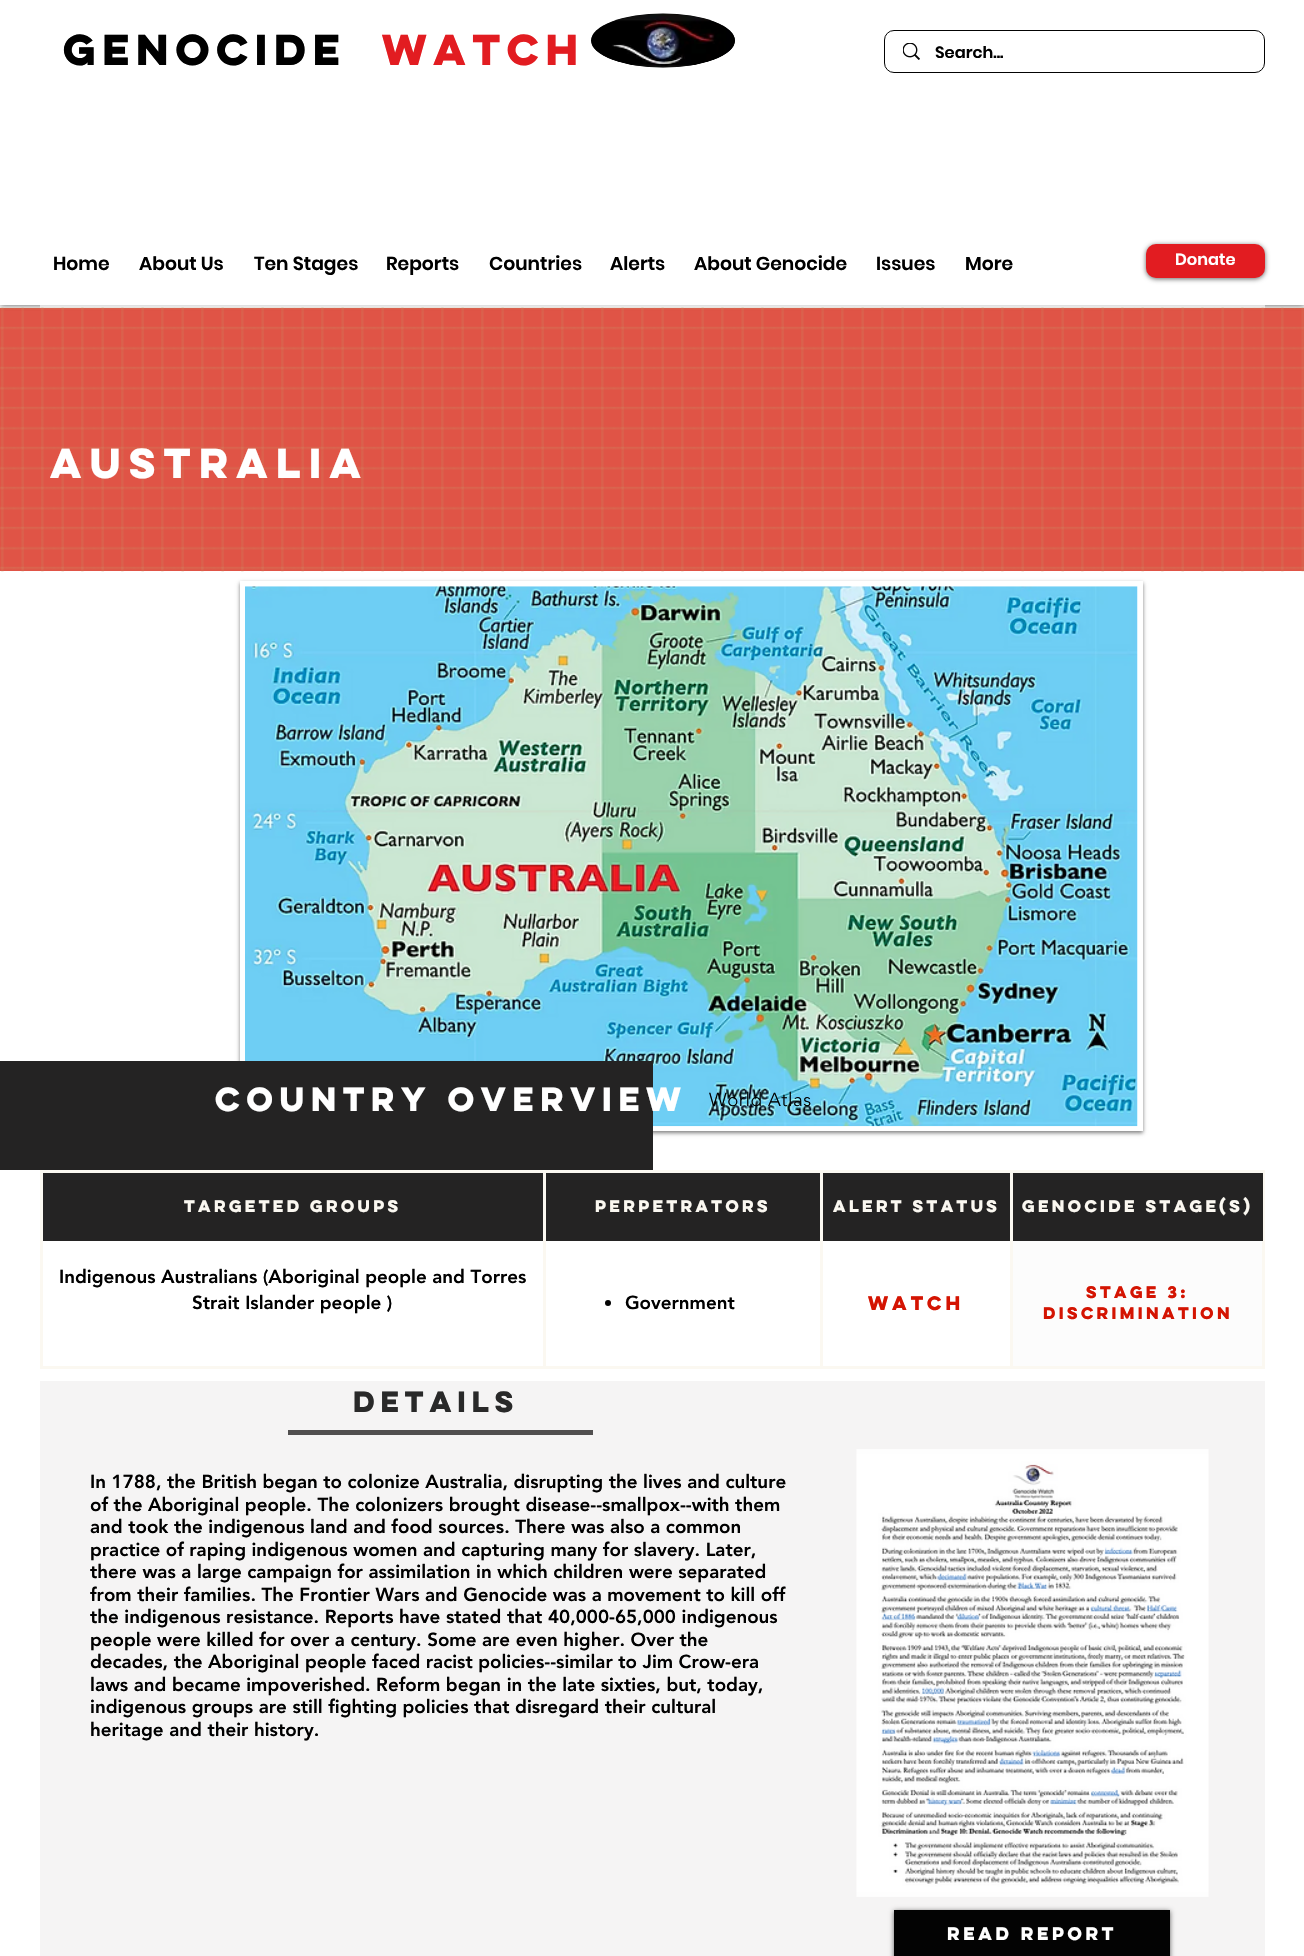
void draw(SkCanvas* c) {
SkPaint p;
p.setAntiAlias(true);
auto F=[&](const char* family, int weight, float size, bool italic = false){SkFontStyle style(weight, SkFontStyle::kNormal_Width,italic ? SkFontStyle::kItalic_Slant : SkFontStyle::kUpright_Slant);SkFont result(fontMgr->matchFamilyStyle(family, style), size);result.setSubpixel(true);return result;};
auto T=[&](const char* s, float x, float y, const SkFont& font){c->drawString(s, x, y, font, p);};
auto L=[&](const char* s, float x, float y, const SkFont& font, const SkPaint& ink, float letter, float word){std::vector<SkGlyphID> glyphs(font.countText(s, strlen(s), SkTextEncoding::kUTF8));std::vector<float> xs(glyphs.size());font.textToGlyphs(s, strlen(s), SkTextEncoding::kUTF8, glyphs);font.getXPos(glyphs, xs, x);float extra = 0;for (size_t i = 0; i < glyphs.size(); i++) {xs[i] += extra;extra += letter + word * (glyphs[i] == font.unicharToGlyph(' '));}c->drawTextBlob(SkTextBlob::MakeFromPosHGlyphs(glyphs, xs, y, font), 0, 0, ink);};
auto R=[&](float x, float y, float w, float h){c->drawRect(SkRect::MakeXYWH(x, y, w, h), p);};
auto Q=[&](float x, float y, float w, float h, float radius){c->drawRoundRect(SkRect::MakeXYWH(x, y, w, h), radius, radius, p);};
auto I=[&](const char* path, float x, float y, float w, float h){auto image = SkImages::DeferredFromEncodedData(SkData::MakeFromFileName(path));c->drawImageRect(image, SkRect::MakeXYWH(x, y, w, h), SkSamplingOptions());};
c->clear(0xffffffff);
c->save();
c->clipRect(SkRect::MakeXYWH(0,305,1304,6));
p.setColor(0xb3000000);
p.setMaskFilter(SkMaskFilter::MakeBlur(kNormal_SkBlurStyle, 3));
c->drawRect(SkRect::MakeXYWH(0,0,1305,305),p);
p.setMaskFilter(nullptr);
c->restore();
auto f1 = F("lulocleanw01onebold",700,38.75);
p.setColor(0xff000000);
L("GENOCIDE",63,65,f1,p,-2,0);
p.setColor(0xffe21c21);
L("WATCH",382,65,f1,p,-2,0);
p.setColor(0xff030303);
c->drawOval(SkRect::MakeXYWH(591,13.5,144,54),p);
I("1.png",591,14,144,54);
p.setStroke(true);
p.setStrokeWidth(1);
c->drawRoundRect(SkRect::MakeXYWH(884.5,30.5,380,42),9.5,9.5,p);
I("2.png",903,43,17,17);
auto f2 = F("Poppins",600,16.25);
p.setStroke(false);
p.setColor(0xff000000);
T("Search...",935,58,f2);
auto f3 = F("Poppins",600,18.75);
T("Home",53,270,f3);
T("About Us",139,270,f3);
T("Ten Stages",254,270,f3);
T("Reports",386,270,f3);
T("Countries",489,270,f3);
T("Alerts",610,270,f3);
T("About Genocide",694,270,f3);
T("Issues",876,270,f3);
T("More",965,270,f3);
p.setColor(0x99000000);
p.setMaskFilter(SkMaskFilter::MakeBlur(kNormal_SkBlurStyle, 2.5));
c->drawRoundRect(SkRect::MakeXYWH(1146,245,119,34),10,10,p);
p.setMaskFilter(nullptr);
p.setColor(0xffe21c21);
Q(1146,244,119,34,10);
p.setColor(0xffffffff);
T("Donate",1175,265,f2);
p.setColor(0x99ffffff);
R(40,305,1225,6);
p.setColor(0xbad41402);
R(0,308,1304,263);
I("3.png",0,307,1304,265);
auto f4 = F("lulocleanw01onebold",700,37.5);
p.setColor(0xffffffff);
T("Australia",50,478,f4);
p.setColor(0x80000000);
p.setMaskFilter(SkMaskFilter::MakeBlur(kNormal_SkBlurStyle, 2));
c->drawRect(SkRect::MakeXYWH(240,583,903,550),p);
p.setMaskFilter(nullptr);
p.setColor(0xffffffff);
R(240,581,903,550);
I("4.png",245,586,893,541);
p.setColor(0xff242323);
R(0,1061,653,109);
auto f5 = F("lulocleanw01onebold",700,30);
p.setColor(0xffffffff);
T("Country Overview",215,1111,f5);
auto f6 = F("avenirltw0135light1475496",300,18.75);
p.setColor(0xff000000);
L("World Atlas",709,1106,f6,p,.5,0);
p.setStroke(true);
p.setStrokeWidth(3);
p.setColor(0xfffbf8f1);
c->drawRect(SkRect::MakeXYWH(41.5,1171.5,1222,196),p);
p.setStroke(false);
p.setColor(0xff242323);
R(43,1173,1220,68);
p.setColor(0xfffbf8f1);
R(543,1173,3,193);
auto f7 = F("lulocleanw01onebold",700,15);
T("Targeted Groups",184,1212,f7);
R(820,1173,3,193);
T("Perpetrators",595,1212,f7);
R(1010,1173,3,193);
T("Alert Status",833,1212,f7);
T("Genocide Stage(s)",1022,1212,f7);
auto f8 = F("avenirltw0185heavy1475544",900,18.75);
p.setColor(0xff000000);
T("Indigenous Australians (Aboriginal people and Torres",59,1283,f8);
T("Strait Islander people )",192,1309,f8);
p.setColor(0xff030303);
c->drawCircle(608,1303,3,p);
p.setColor(0xff000000);
T("Government",625,1309,f8);
auto f9 = F("lulocleanw01onebold",700,17.5);
p.setColor(0xffd41402);
T("Watch",868,1310,f9);
p.setColor(0x1ae2dfdf);
R(1013,1241,249,125);
p.setColor(0xffd41402);
T("Stage 3:",1086,1298,f7);
T("Discrimination",1043,1319,f7);
p.setColor(0xfff5f4f4);
R(40,1381,1225,575);
auto f10 = F("lulocleanw01onebold",700,26.25);
p.setColor(0xff292929);
T("Details",353,1412,f10);
p.setColor(0xff514f4f);
R(288,1430,305,5);
p.setColor(0xff000000);
T("In 1788, the British began to colonize Australia, disrupting the lives and culture",90,1488,f8);
T("of the Aboriginal people. The colonizers brought disease--smallpox--with them",90,1511,f8);
T("and took the indigenous land and food sources. There was also a common",90,1533,f8);
T("practice of raping indigenous women and capturing many for slavery. Later,",90,1556,f8);
T("there was a large campaign for assimilation in which children were separated",90,1578,f8);
T("from their families. The Frontier Wars and Genocide was a movement to kill off",90,1601,f8);
T("the indigenous resistance. Reports have stated that 40,000-65,000 indigenous",90,1623,f8);
T("people were killed for over a century. Some are even higher. Over the",90,1646,f8);
T("decades, the Aboriginal people faced racist policies--similar to Jim Crow-era",90,1668,f8);
T("laws and became impoverished. Reform began in the late sixties, but, today,",90,1691,f8);
T("indigenous groups are still fighting policies that disregard their cultural",90,1713,f8);
T("heritage and their history.",90,1736,f8);
I("5.png",856,1449,353,448);
p.setColor(0x99000000);
p.setMaskFilter(SkMaskFilter::MakeBlur(kNormal_SkBlurStyle, 2.5));
c->drawRect(SkRect::MakeXYWH(894,1911,276,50),p);
p.setMaskFilter(nullptr);
p.setColor(0xff030303);
R(894,1910,276,46);
auto f11 = F("lulocleanw01onebold",700,16.25);
p.setColor(0xffffffff);
T("Read Report",947,1940,f11);
}
